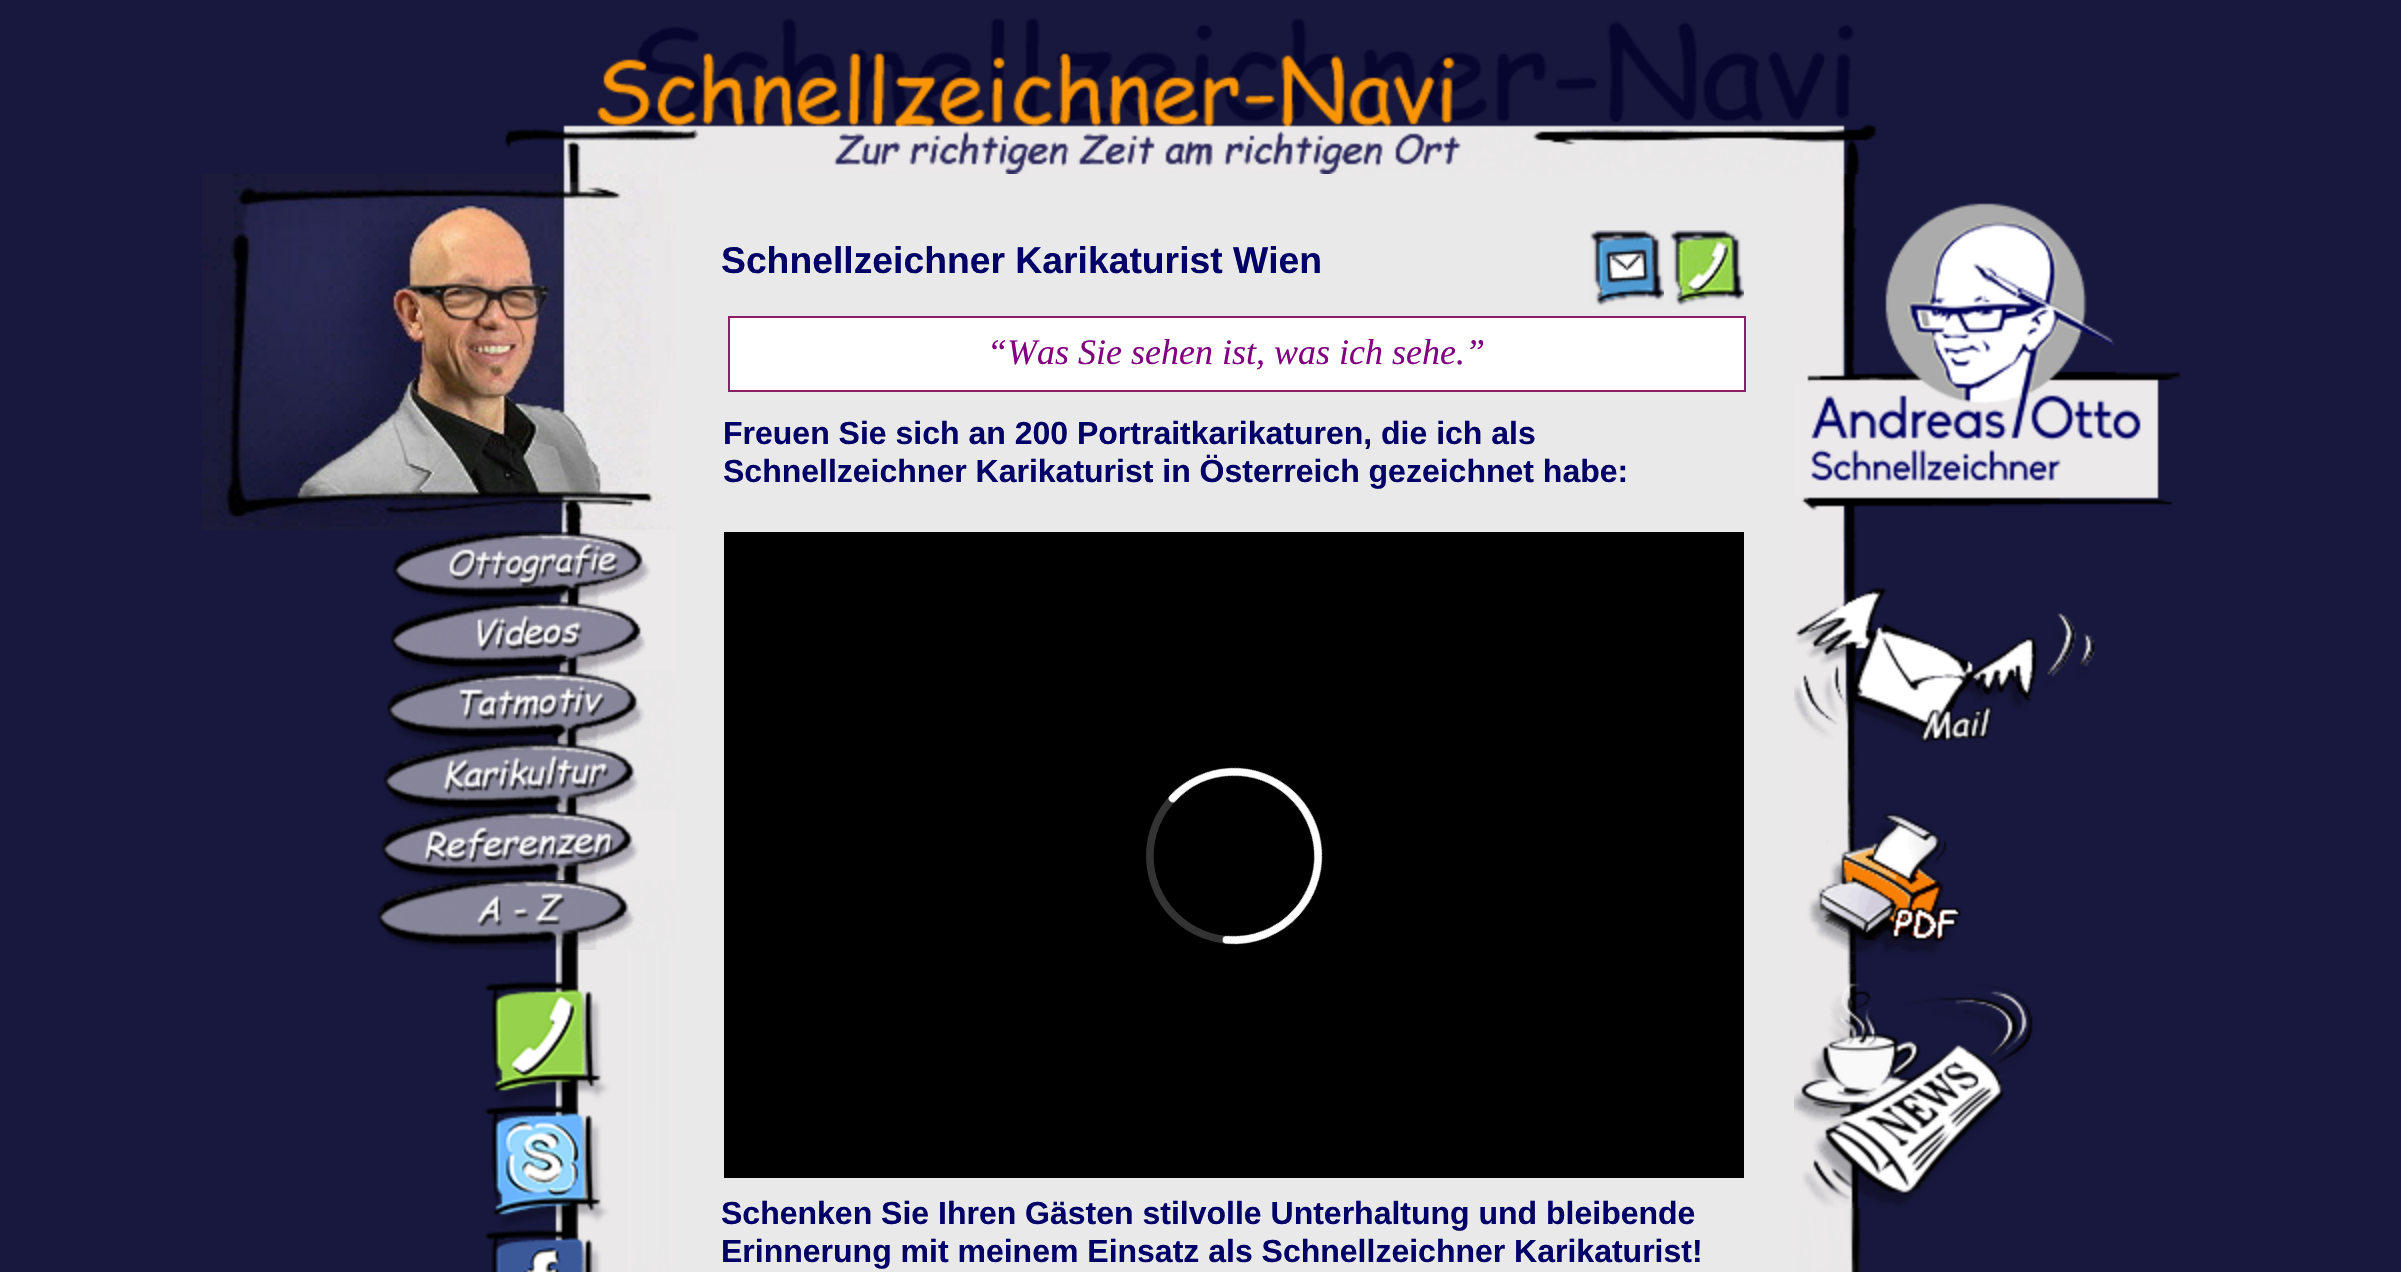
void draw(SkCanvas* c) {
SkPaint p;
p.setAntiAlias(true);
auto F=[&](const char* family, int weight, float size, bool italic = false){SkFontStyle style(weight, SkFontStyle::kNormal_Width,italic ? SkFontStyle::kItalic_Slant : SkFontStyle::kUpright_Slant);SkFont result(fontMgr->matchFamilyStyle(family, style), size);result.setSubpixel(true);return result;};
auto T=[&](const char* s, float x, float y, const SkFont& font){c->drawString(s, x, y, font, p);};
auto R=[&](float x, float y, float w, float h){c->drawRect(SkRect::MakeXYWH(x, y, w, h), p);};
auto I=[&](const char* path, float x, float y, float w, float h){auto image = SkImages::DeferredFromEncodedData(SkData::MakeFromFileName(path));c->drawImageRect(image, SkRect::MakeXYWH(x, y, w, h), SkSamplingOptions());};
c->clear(0xff18183e);
I("1.png",505,18,1372,156);
I("2.png",202,174,474,356);
p.setColor(0xffeae9e9);
R(676,174,1118,1098);
auto f1 = F("Liberation Sans",700,37.3);
p.setColor(0xff000066);
T("Schnellzeichner Karikaturist Wien",721,273,f1);
I("3.png",1590,230,74,76);
I("4.png",1670,230,74,76);
p.setColor(0xffffffff);
c->drawRect(SkRect::MakeXYWH(729,317,1016,74),p);
p.setStroke(true);
p.setStrokeWidth(2);
p.setColor(0xff8a1f66);
c->drawRect(SkRect::MakeXYWH(729,317,1016,74),p);
auto f2 = F("Liberation Serif",400,36,true);
p.setStroke(false);
p.setColor(0xff800080);
T("“Was Sie sehen ist, was ich sehe.”",987,364,f2);
auto f3 = F("Liberation Sans",700,32);
p.setColor(0xff000066);
T("Freuen Sie sich an 200 Portraitkarikaturen, die ich als",723,444,f3);
T("Schnellzeichner Karikaturist in Österreich gezeichnet habe:",723,482,f3);
I("5.png",724,532,1020,646);
T("Schenken Sie Ihren Gästen stilvolle Unterhaltung und bleibende",721,1224,f3);
T("Erinnerung mit meinem Einsatz als Schnellzeichner Karikaturist!",721,1262,f3);
I("6.png",1794,174,387,1034);
I("7.png",392,530,284,70);
I("8.png",390,600,286,70);
I("9.png",387,670,289,70);
I("10.png",383,740,293,70);
I("11.png",381,810,295,70);
I("12.png",377,880,299,70);
I("13.png",485,950,191,322);
I("14.png",1794,1208,67,64);
}
